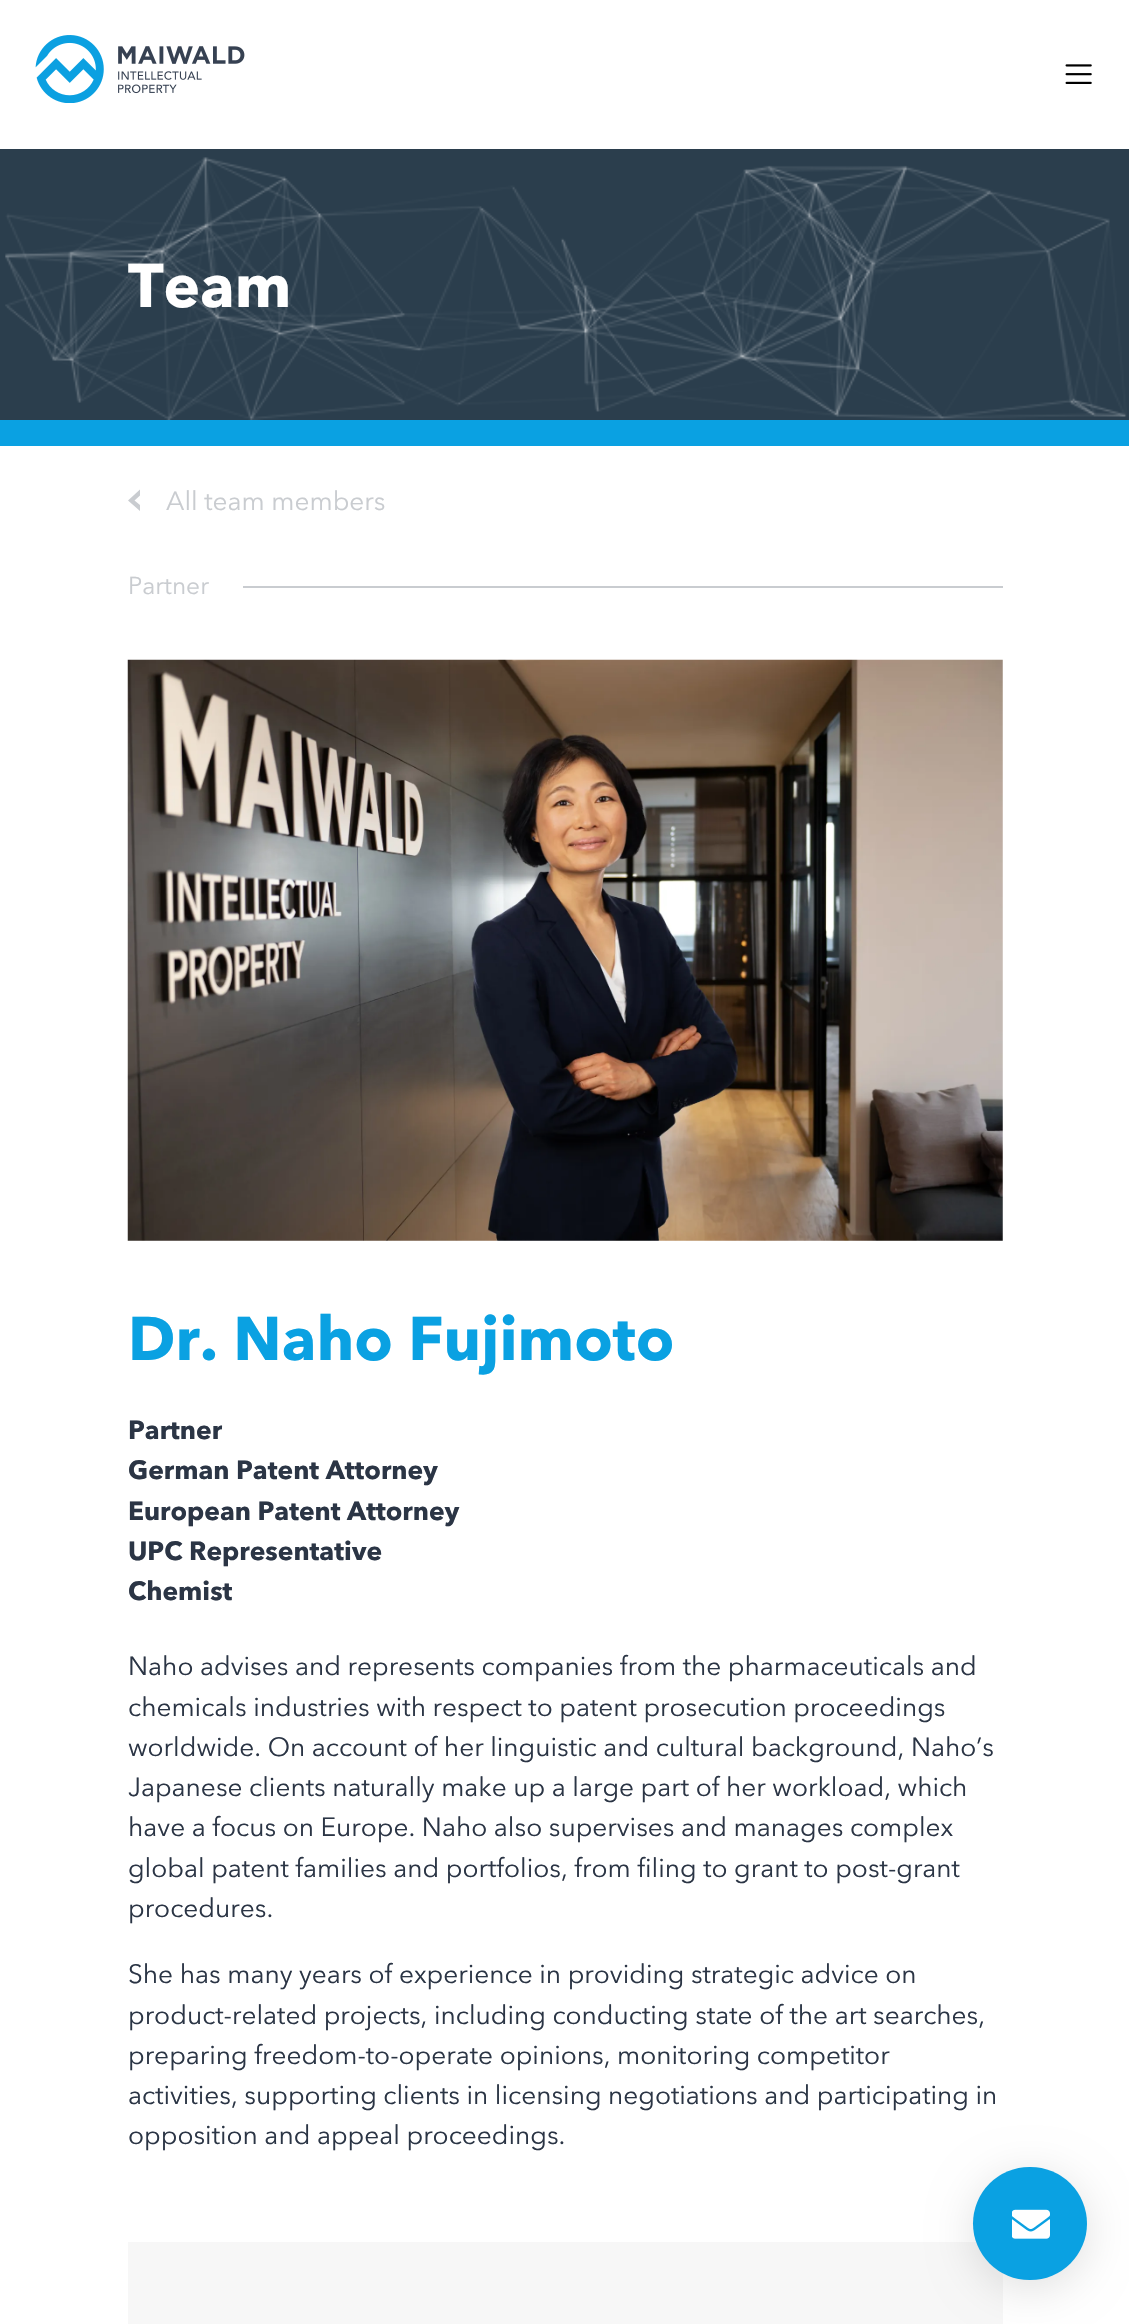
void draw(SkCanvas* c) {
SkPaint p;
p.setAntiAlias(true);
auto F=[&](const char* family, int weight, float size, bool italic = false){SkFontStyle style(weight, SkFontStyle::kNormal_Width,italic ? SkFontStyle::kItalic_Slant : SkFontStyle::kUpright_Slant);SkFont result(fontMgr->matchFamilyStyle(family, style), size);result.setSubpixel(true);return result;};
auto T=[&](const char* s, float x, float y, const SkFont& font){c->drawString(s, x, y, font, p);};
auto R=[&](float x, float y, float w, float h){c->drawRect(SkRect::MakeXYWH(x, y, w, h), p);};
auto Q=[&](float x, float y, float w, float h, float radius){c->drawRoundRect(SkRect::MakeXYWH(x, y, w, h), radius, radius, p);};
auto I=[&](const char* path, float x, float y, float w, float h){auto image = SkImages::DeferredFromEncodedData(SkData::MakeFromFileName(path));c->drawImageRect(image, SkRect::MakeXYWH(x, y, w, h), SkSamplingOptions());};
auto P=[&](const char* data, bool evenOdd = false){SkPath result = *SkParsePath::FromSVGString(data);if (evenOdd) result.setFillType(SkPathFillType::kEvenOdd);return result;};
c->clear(0xffffffff);
I("1.png",35,35,210,68);
I("2.png",1065,64,27,20);
p.setColor(0xff2b3e4d);
R(0,149,1129,271);
p.setColor(0xff0aa1e2);
R(0,420,1129,26);
auto f1 = F("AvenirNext",700,61.25);
p.setColor(0xffffffff);
T("Team",128,307,f1);
I("3.png",5,157,1122,263);
p.setColor(0xffc9ccd0);
c->drawPath(P("M140 511v-6l-5.5-4.5l5.5-5v-6l-12 11z"),p);
auto f2 = F("AvenirNext",400,26.25);
T("All team members",166,510,f2);
auto f3 = F("AvenirNext",400,24.5);
T("Partner",128,594,f3);
R(243,586,760,2);
I("4.png",127,659,876,582);
p.setColor(0xff0aa1e2);
T("Dr. Naho Fujimoto",128,1360,f1);
auto f4 = F("AvenirNext",700,26.25);
p.setColor(0xff2b3545);
T("Partner",128,1439,f4);
T("German Patent Attorney",128,1479,f4);
T("European Patent Attorney",128,1520,f4);
T("UPC Representative",128,1560,f4);
T("Chemist",128,1600,f4);
T("Naho advises and represents companies from the pharmaceuticals and",128,1675,f2);
T("chemicals industries with respect to patent prosecution proceedings",128,1716,f2);
T("worldwide. On account of her linguistic and cultural background, Naho’s",128,1756,f2);
T("Japanese clients naturally make up a large part of her workload, which",128,1796,f2);
T("have a focus on Europe. Naho also supervises and manages complex",128,1836,f2);
T("global patent families and portfolios, from filing to grant to post-grant",128,1877,f2);
T("procedures.",128,1917,f2);
T("She has many years of experience in providing strategic advice on",128,1983,f2);
T("product-related projects, including conducting state of the art searches,",128,2024,f2);
T("preparing freedom-to-operate opinions, monitoring competitor",128,2064,f2);
T("activities, supporting clients in licensing negotiations and participating in",128,2104,f2);
T("opposition and appeal proceedings.",128,2144,f2);
p.setColor(0xfff7f7f7);
R(128,2242,875,82);
p.setColor(0x1f000000);
p.setMaskFilter(SkMaskFilter::MakeBlur(kNormal_SkBlurStyle, 22));
c->drawRoundRect(SkRect::MakeXYWH(973,2175,114,114),57,57,p);
p.setMaskFilter(nullptr);
p.setColor(0xff0aa1e2);
Q(973,2167,114,113,56.5);
I("5.png",1012,2209,38,30);
}
